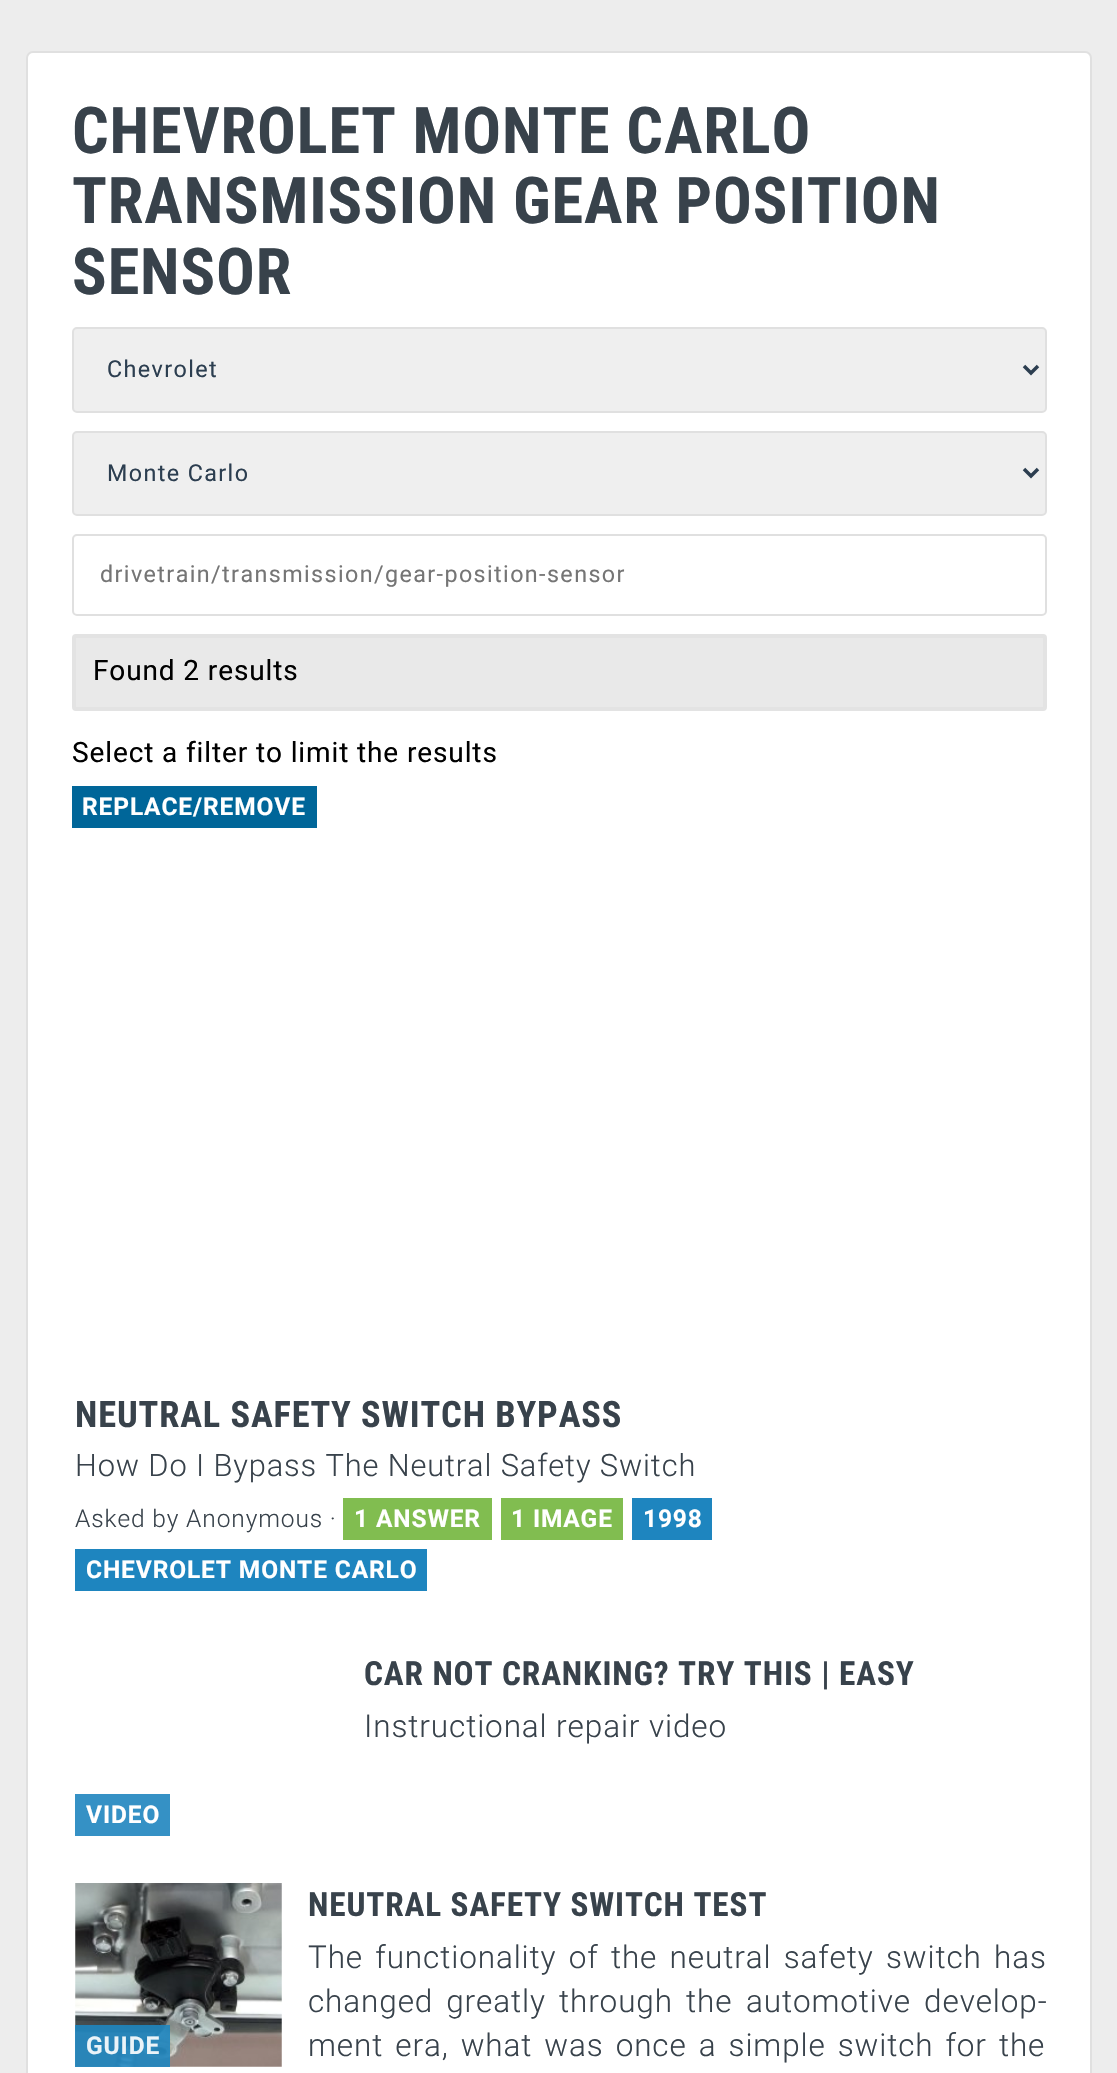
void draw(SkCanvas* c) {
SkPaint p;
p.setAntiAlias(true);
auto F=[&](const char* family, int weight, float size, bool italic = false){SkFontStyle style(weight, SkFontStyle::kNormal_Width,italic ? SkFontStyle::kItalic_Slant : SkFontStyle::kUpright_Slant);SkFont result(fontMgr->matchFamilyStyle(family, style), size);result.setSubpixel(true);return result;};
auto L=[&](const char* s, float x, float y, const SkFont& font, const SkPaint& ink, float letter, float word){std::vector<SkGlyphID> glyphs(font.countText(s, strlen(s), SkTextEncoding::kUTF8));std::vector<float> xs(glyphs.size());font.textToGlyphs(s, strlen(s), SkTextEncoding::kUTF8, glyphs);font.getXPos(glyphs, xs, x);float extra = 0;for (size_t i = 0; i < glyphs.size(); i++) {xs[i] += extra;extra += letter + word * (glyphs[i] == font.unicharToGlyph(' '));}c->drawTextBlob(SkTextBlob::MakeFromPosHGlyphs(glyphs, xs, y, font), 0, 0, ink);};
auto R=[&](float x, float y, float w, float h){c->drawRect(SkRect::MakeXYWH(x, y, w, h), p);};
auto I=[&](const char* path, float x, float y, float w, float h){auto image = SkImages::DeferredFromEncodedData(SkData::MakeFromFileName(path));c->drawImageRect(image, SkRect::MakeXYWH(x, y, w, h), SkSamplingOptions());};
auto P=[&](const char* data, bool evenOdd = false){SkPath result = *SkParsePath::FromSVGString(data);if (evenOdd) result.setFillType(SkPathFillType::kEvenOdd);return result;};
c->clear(0xffededed);
p.setColor(0xffffffff);
c->drawRoundRect(SkRect::MakeXYWH(27,52,1064,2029),6,6,p);
p.setStroke(true);
p.setStrokeWidth(2);
p.setColor(0xffe0e0e0);
c->drawRoundRect(SkRect::MakeXYWH(27,52,1064,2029),6,6,p);
auto f1 = F("Roboto Condensed",700,64.4);
p.setStroke(false);
p.setColor(0xff38424b);
L("CHEVROLET MONTE CARLO",72,153,f1,p,.88,0);
L("TRANSMISSION GEAR POSITION",72,223,f1,p,.88,0);
L("SENSOR",72,294,f1,p,.88,0);
p.setColor(0xffefefef);
c->drawRoundRect(SkRect::MakeXYWH(73,328,973,84),4,4,p);
p.setStroke(true);
p.setColor(0xffe0e0e0);
c->drawRoundRect(SkRect::MakeXYWH(73,328,973,84),4,4,p);
p.setStrokeWidth(3.5);
p.setColor(0xff2c3e50);
c->drawPath(P("M1024 366l7 7l7-7"),p);
auto f2 = F("Roboto",400,23.3);
p.setStroke(false);
L("Chevrolet",107,377,f2,p,1.4,0);
p.setColor(0xffefefef);
c->drawRoundRect(SkRect::MakeXYWH(73,432,973,83),4,4,p);
p.setStroke(true);
p.setStrokeWidth(2);
p.setColor(0xffe0e0e0);
c->drawRoundRect(SkRect::MakeXYWH(73,432,973,83),4,4,p);
p.setStrokeWidth(3.5);
p.setColor(0xff2c3e50);
c->drawPath(P("M1024 469l7 7l7-7"),p);
p.setStroke(false);
L("Monte Carlo",107,481,f2,p,1.4,0);
p.setStroke(true);
p.setStrokeWidth(2);
p.setColor(0xffe0e0e0);
c->drawRoundRect(SkRect::MakeXYWH(73,535,973,80),4,4,p);
p.setStroke(false);
p.setColor(0xff757575);
L("drivetrain/transmission/gear-position-sensor",100,582,f2,p,1.4,0);
p.setColor(0xffe9e9e9);
c->drawRoundRect(SkRect::MakeXYWH(74,636,971,73),2,2,p);
p.setStroke(true);
p.setStrokeWidth(4);
p.setColor(0xffe3e3e3);
c->drawRoundRect(SkRect::MakeXYWH(74,636,971,73),2,2,p);
auto f3 = F("Roboto",400,28);
p.setStroke(false);
p.setColor(0xff000000);
L("Found 2 results",93,680,f3,p,.88,0);
L("Select a filter to limit the results",72,762,f3,p,.88,0);
p.setColor(0xff006699);
R(72,786,245,42);
auto f4 = F("Roboto",700,24.5);
p.setColor(0xffffffff);
L("REPLACE/REMOVE",82,815,f4,p,.88,0);
auto f5 = F("Roboto Condensed",700,36.4);
p.setColor(0xff38424b);
L("NEUTRAL SAFETY SWITCH BYPASS",75,1427,f5,p,.88,0);
auto f6 = F("Roboto",300,30.8);
L("How Do I Bypass The Neutral Safety Switch",75,1476,f6,p,.88,0);
auto f7 = F("Roboto",300,24.5);
L("Asked by Anonymous ·",75,1527,f7,p,.88,0);
p.setColor(0xff81bd50);
R(343,1498,149,42);
p.setColor(0xffffffff);
L("1 ANSWER",354,1527,f4,p,.88,0);
p.setColor(0xff81bd50);
R(501,1498,122,42);
p.setColor(0xffffffff);
L("1 IMAGE",511,1527,f4,p,.88,0);
p.setColor(0xff1e85bf);
R(632,1498,80,42);
p.setColor(0xffffffff);
L("1998",643,1527,f4,p,.88,0);
p.setColor(0xff1e85bf);
R(75,1549,352,42);
p.setColor(0xffffffff);
L("CHEVROLET MONTE CARLO",86,1578,f4,p,.88,0);
auto f8 = F("Roboto Condensed",700,33.25);
p.setColor(0xff38424b);
L("CAR NOT CRANKING? TRY THIS | EASY",364,1685,f8,p,.88,0);
auto f9 = F("Roboto",300,31.5);
L("Instructional repair video",364,1737,f9,p,.88,0);
p.setColor(0xff3591c5);
R(75,1794,95,42);
p.setColor(0xffffffff);
L("VIDEO",86,1823,f4,p,.88,0);
I("1.png",75,1883,207,184);
p.setColor(0xe61e85bf);
R(75,2025,95,42);
p.setColor(0xffeaf3f8);
L("GUIDE",86,2054,f4,p,.88,0);
p.setColor(0xff38424b);
L("NEUTRAL SAFETY SWITCH TEST",308,1916,f8,p,.88,0);
L("The functionality of the neutral safety switch has",308,1968,f9,p,.88,3.75);
L("changed greatly through the",308,2012,f9,p,.88,4.5);
L("automotive develop-",746,2012,f9,p,.88,4.5);
L("ment era, what was once a simple switch for the",308,2056,f9,p,.88,3.5);
}
